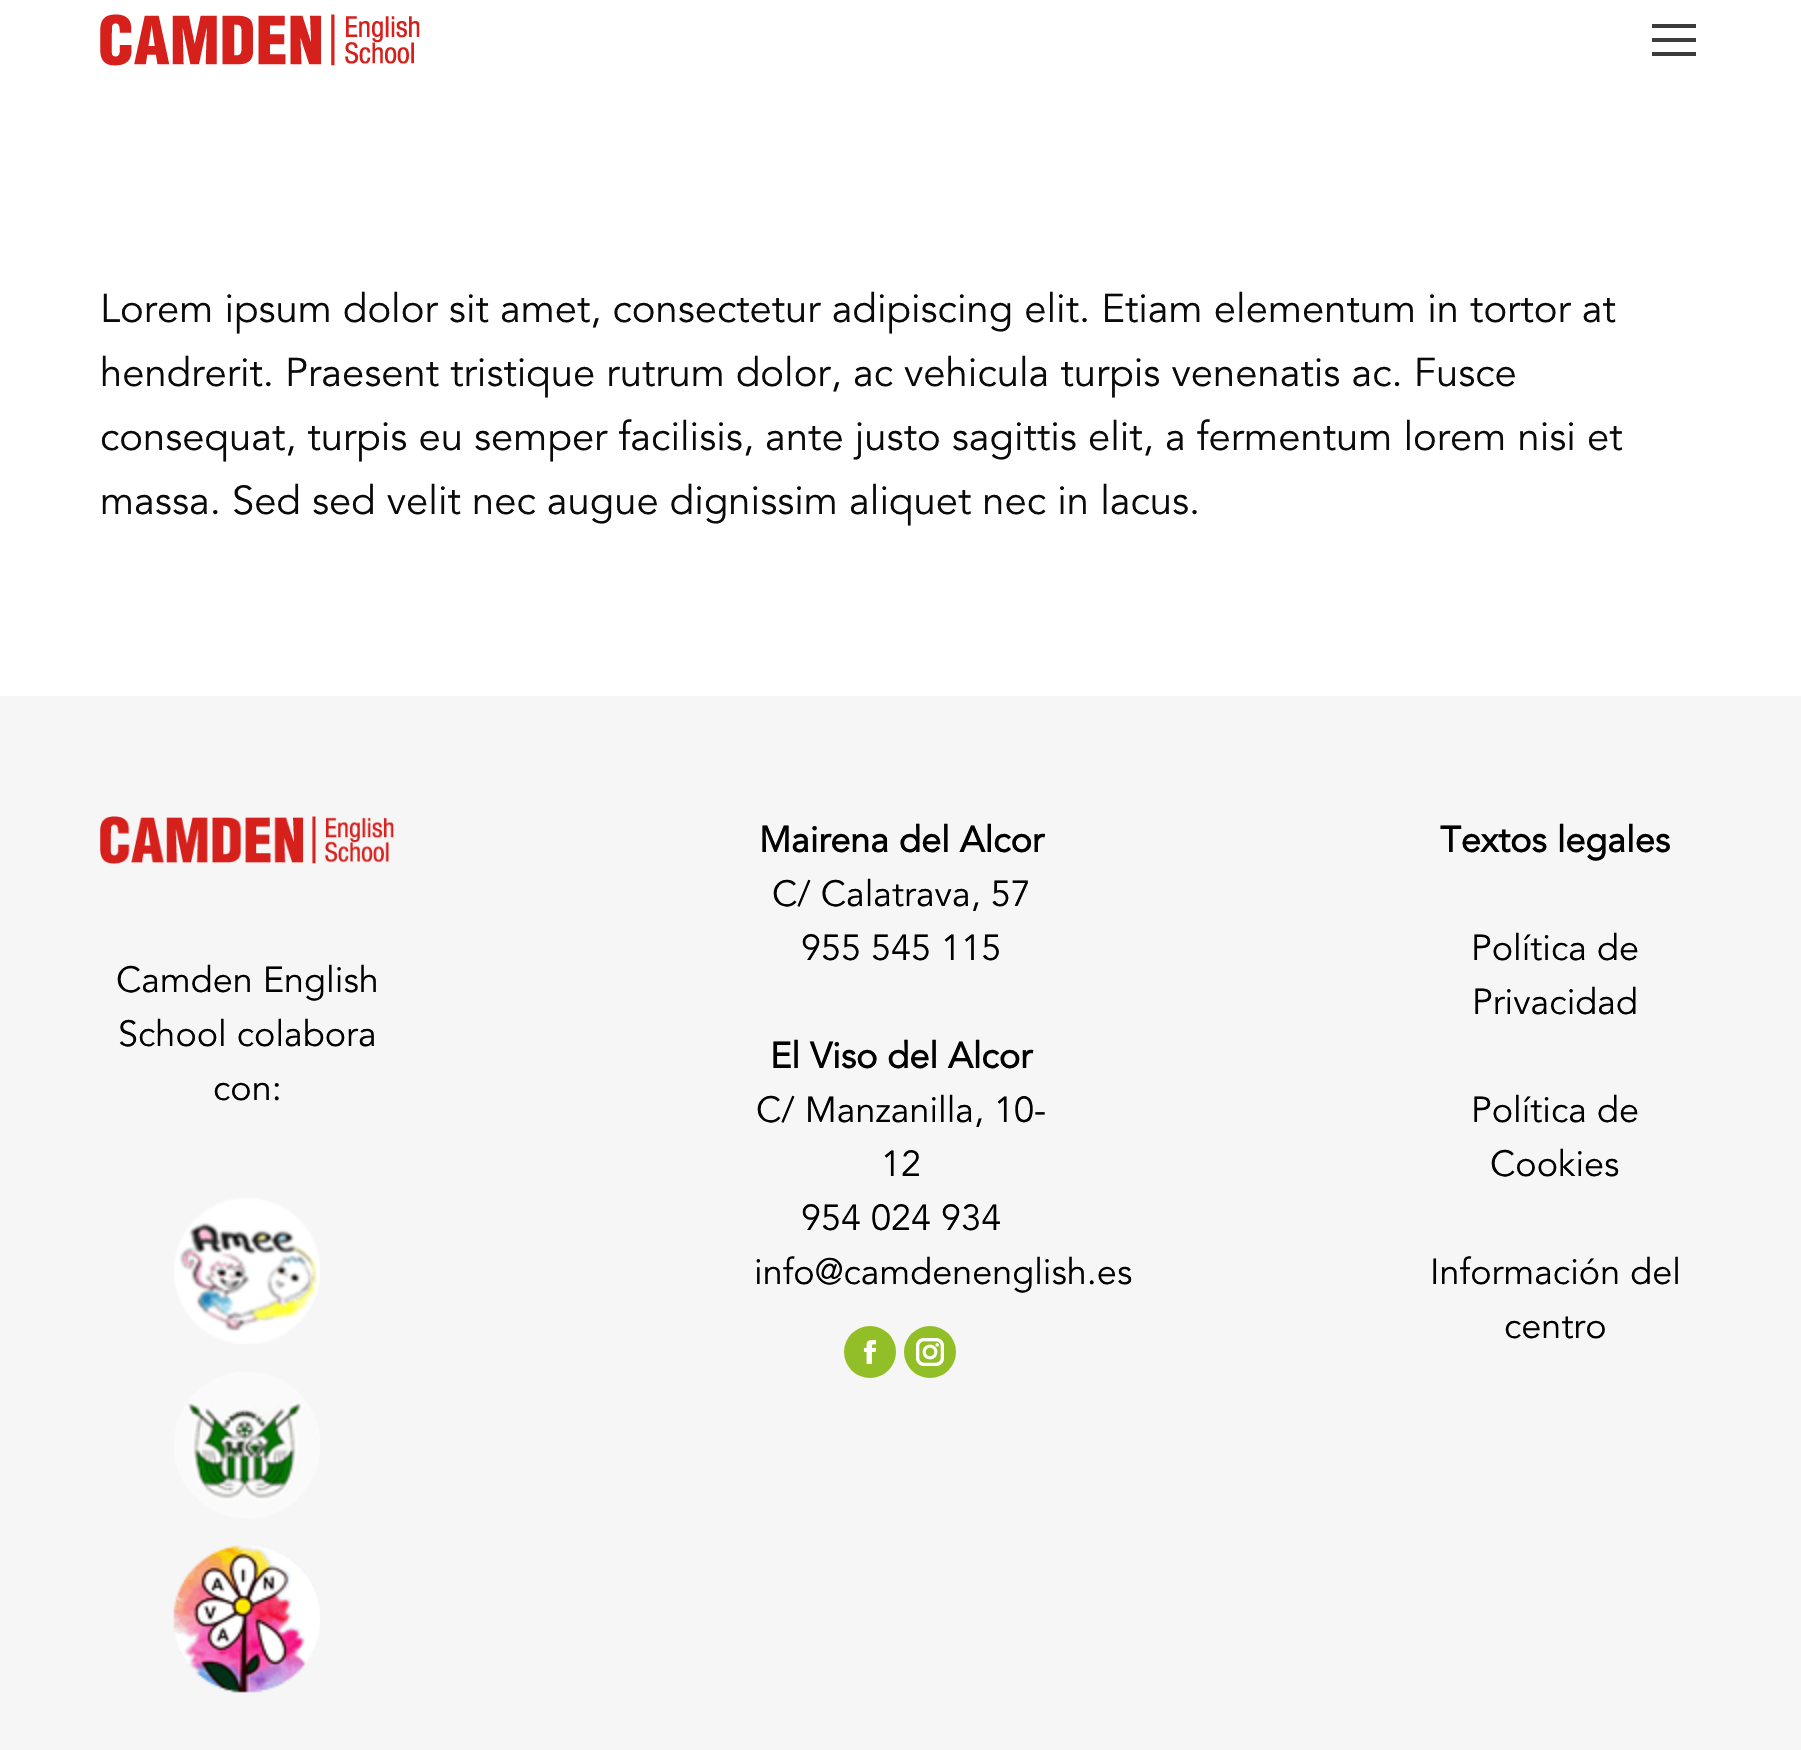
void draw(SkCanvas* c) {
SkPaint p;
p.setAntiAlias(true);
auto F=[&](const char* family, int weight, float size, bool italic = false){SkFontStyle style(weight, SkFontStyle::kNormal_Width,italic ? SkFontStyle::kItalic_Slant : SkFontStyle::kUpright_Slant);SkFont result(fontMgr->matchFamilyStyle(family, style), size);result.setSubpixel(true);return result;};
auto T=[&](const char* s, float x, float y, const SkFont& font){c->drawString(s, x, y, font, p);};
auto R=[&](float x, float y, float w, float h){c->drawRect(SkRect::MakeXYWH(x, y, w, h), p);};
auto I=[&](const char* path, float x, float y, float w, float h){auto image = SkImages::DeferredFromEncodedData(SkData::MakeFromFileName(path));c->drawImageRect(image, SkRect::MakeXYWH(x, y, w, h), SkSamplingOptions());};
c->clear(0xffffffff);
I("1.png",100,14,320,52);
p.setColor(0xff3c3c3b);
R(1652,24,44,4);
R(1652,38,44,4);
R(1652,52,44,4);
auto f1 = F("Avenir",400,40);
p.setColor(0xff0a0a0a);
T("Lorem ipsum dolor sit amet, consectetur adipiscing elit. Etiam elementum in tortor at",100,322,f1);
T("hendrerit. Praesent tristique rutrum dolor, ac vehicula turpis venenatis ac. Fusce",100,386,f1);
T("consequat, turpis eu semper facilisis, ante justo sagittis elit, a fermentum lorem nisi et",100,450,f1);
T("massa. Sed sed velit nec augue dignissim aliquet nec in lacus.",100,514,f1);
p.setColor(0xfff6f6f6);
R(0,696,1801,1054);
I("2.png",100,816,294,48);
auto f2 = F("Avenir",400,36);
p.setColor(0xff000000);
T("Camden English",116,992,f2);
T("School colabora",118,1046,f2);
T("con:",213,1100,f2);
I("3.png",174,1198,146,146);
I("4.png",174,1372,146,146);
I("5.png",173,1545,147,148);
auto f3 = F("Avenir",700,36);
T("Mairena del Alcor",759,852,f3);
T("C/ Calatrava, 57",772,906,f2);
T("955 545 115",801,960,f2);
T("El Viso del Alcor",770,1068,f3);
T("C/ Manzanilla, 10-",756,1122,f2);
T("12",881,1176,f2);
T("954 024 934",801,1230,f2);
T("info@camdenenglish.es",754,1284,f2);
p.setColor(0xff92bf27);
c->drawCircle(870,1352,26,p);
I("6.png",863,1340,14,24);
c->drawCircle(930,1352,26,p);
I("7.png",916,1338,28,28);
p.setColor(0xff000000);
T("Textos legales",1440,852,f3);
T("Política de",1471,960,f2);
T("Privacidad",1472,1014,f2);
T("Política de",1471,1122,f2);
T("Cookies",1490,1176,f2);
T("Información del",1430,1284,f2);
T("centro",1504,1338,f2);
}
